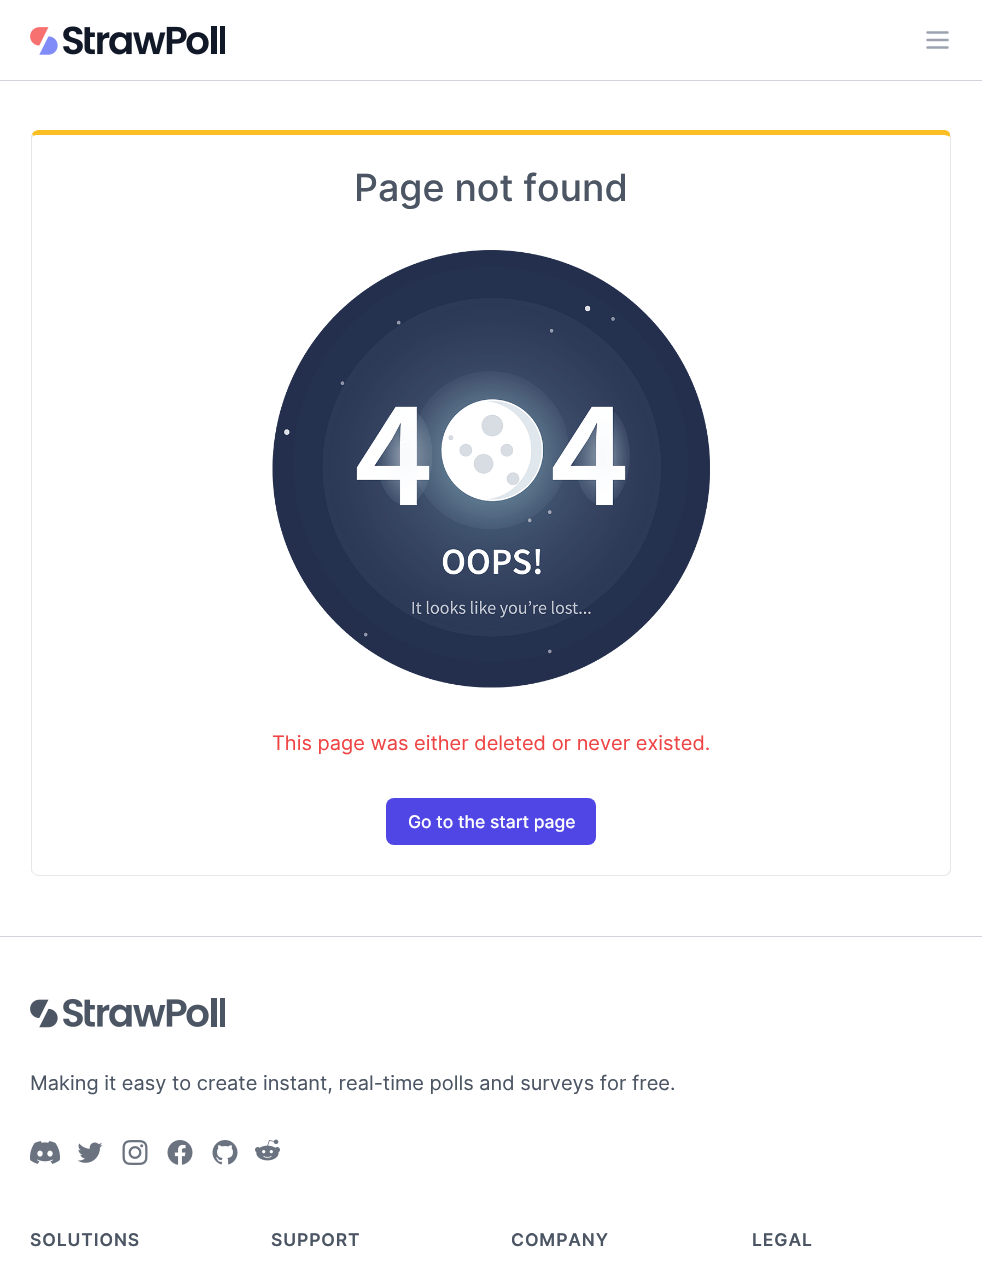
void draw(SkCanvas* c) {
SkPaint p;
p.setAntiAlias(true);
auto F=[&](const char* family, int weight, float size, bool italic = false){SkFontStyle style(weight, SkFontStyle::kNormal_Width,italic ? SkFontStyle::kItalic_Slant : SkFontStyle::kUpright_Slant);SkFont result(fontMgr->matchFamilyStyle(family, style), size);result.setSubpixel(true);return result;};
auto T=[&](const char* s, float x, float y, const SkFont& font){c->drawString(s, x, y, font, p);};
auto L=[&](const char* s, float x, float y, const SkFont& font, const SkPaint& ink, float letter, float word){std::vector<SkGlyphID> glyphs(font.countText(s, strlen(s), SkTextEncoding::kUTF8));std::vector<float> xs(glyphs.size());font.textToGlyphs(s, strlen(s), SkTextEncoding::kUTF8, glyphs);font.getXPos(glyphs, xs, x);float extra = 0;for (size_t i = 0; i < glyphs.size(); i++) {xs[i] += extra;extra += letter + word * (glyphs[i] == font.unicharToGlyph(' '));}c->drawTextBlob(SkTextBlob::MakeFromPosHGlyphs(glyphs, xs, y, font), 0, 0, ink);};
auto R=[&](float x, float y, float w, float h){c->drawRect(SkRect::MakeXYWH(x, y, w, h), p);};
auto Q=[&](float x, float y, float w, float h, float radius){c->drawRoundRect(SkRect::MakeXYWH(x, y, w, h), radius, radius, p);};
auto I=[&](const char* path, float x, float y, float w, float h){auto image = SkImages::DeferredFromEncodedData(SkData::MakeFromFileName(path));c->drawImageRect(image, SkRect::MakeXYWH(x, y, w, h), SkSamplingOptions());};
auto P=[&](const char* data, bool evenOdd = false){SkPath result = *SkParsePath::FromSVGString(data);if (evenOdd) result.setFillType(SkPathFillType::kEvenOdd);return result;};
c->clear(0xffffffff);
p.setStroke(true);
p.setStrokeWidth(1);
p.setColor(0xffd1d5db);
c->drawRect(SkRect::MakeXYWH(-.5,-.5,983,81),p);
I("1.png",30,26,195,29);
p.setStrokeWidth(2.5);
p.setStrokeCap(SkPaint::kRound_Cap);
p.setStrokeJoin(SkPaint::kRound_Join);
p.setColor(0xff9ca3af);
c->drawPath(P("M927.5 32.5h20m-20 7.5h20m-20 7.5h20"),p);
p.setStroke(false);
p.setColor(0xfffbbf24);
c->drawPath(P("M39 130c-3 0-5 1-7 4l1 2c1-1 3-1 6-1h905c2 0 5 1 6 2v-3c-1-3-3-4-6-4z"),p);
p.setColor(0xffe5e7eb);
c->drawPath(P("M950 134l1 4v731c0 2-1 4-2 5l-1-1c1-1 2-3 2-4v-731v-1z"),p);
c->drawPath(P("M949 874c-1 1-3 2-5 2h-905c-2 0-4-1-5-2v-1c1 1 3 2 5 2h905c2 0 3-1 4-2z"),p);
c->drawPath(P("M31 136l1-2l1 2l-1 2v731c0 2 1 3 2 4v1l-3-3z"),p);
auto f1 = F("Inter",500,37.5);
p.setColor(0xff4b5563);
T("Page not found",354,201,f1);
I("2.png",272,250,438,438);
auto f2 = F("Inter",400,20);
p.setColor(0xffef4444);
T("This page was either deleted or never existed.",272,750,f2);
p.setColor(0xff4f46e5);
Q(386,798,210,47,8);
auto f3 = F("Inter",500,17.5);
p.setColor(0xffffffff);
T("Go to the start page",408,828,f3);
p.setColor(0xffd1d5db);
R(0,936,982,1);
I("3.png",30,998,195,30);
p.setColor(0xff4b5563);
T("Making it easy to create instant, real-time polls and surveys for free.",30,1090,f2);
I("4.png",30,1141,30,23);
I("5.png",77,1142,26,21);
I("6.png",122,1140,26,25);
I("7.png",167,1140,26,25);
I("8.png",212,1140,26,25);
I("9.png",255,1139,25,22);
auto f4 = F("Inter",600,17.5);
L("SOLUTIONS",30,1246,f4,p,.9,0);
L("SUPPORT",271,1246,f4,p,.9,0);
L("COMPANY",511,1246,f4,p,.9,0);
L("LEGAL",752,1246,f4,p,.9,0);
}
